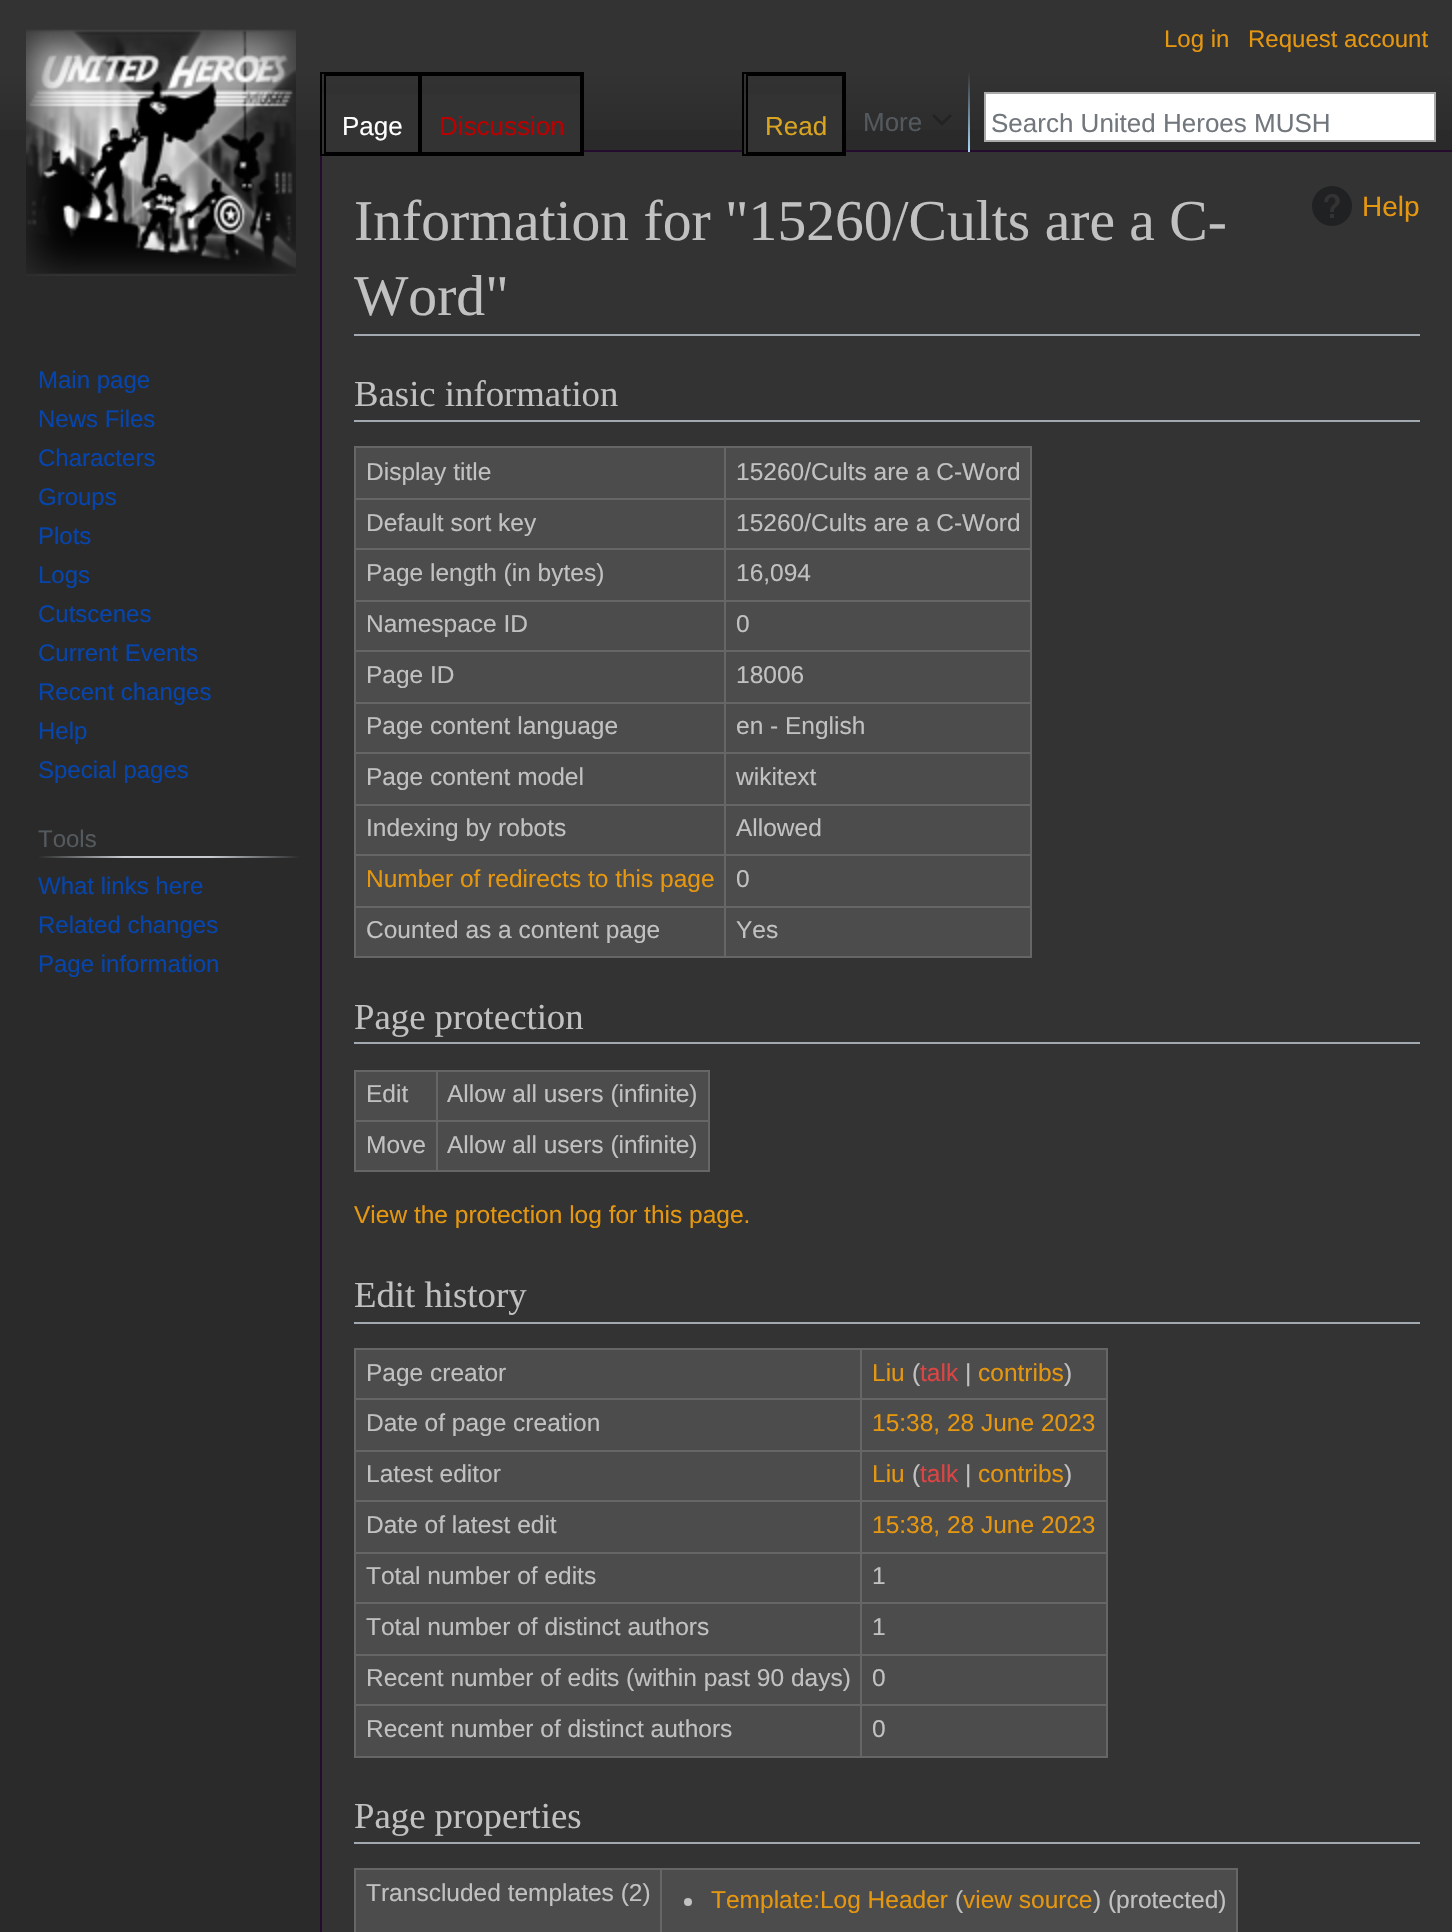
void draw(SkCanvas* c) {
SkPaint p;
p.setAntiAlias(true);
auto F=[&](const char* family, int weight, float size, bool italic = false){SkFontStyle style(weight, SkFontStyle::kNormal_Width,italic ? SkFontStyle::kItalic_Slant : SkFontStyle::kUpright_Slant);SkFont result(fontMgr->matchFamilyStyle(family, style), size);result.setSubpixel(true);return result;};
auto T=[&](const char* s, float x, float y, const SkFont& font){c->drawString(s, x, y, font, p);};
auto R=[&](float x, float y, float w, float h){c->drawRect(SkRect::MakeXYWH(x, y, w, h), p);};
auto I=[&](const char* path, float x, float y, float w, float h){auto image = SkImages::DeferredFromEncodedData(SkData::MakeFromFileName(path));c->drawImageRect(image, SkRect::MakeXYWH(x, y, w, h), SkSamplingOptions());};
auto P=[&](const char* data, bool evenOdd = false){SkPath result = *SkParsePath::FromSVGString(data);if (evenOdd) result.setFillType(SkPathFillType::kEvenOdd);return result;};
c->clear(0xff2a2a2a);
{
const SkColor colors[] = {0xff333333,0xff2a2a2a};
const float stops[] = {.5,1};
const SkPoint ends[] = {{726,-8}, {726,152}};
p.setShader(SkGradientShader::MakeLinear(ends, colors, stops, 2, SkTileMode::kClamp));
p.setAlpha(255);
}
R(0,0,1452,130);
auto f1 = F("Liberation Sans",400,24);
p.setShader(nullptr);
p.setColor(0xffe69710);
T("Log in",1164,47,f1);
T("Request account",1248,47,f1);
p.setColor(0xff333333);
R(322,152,1130,1780);
R(322,94,2,60);
p.setColor(0xff250b2d);
R(320,150,2,1782);
p.setStroke(true);
p.setStrokeWidth(2);
p.setColor(0xff000000);
c->drawRect(SkRect::MakeXYWH(321,73,262,82),p);
p.setStroke(false);
p.setColor(0xff333333);
R(326,94,92,58);
p.setStroke(true);
p.setColor(0xff000000);
c->drawRect(SkRect::MakeXYWH(325,75,94,78),p);
auto f2 = F("Liberation Sans",400,26);
p.setStroke(false);
p.setColor(0xffffffff);
T("Page",342,135,f2);
p.setColor(0xff333333);
R(422,94,158,58);
p.setStroke(true);
p.setColor(0xff000000);
c->drawRect(SkRect::MakeXYWH(421,75,160,78),p);
p.setStroke(false);
p.setColor(0xffba0000);
T("Discussion",439,135,f2);
p.setColor(0xff250b2d);
R(584,150,868,2);
p.setColor(0xff333333);
R(744,94,2,60);
p.setStroke(true);
p.setColor(0xff000000);
c->drawRect(SkRect::MakeXYWH(743,73,102,82),p);
p.setStroke(false);
p.setColor(0xff333333);
R(748,94,94,58);
p.setStroke(true);
p.setColor(0xff000000);
c->drawRect(SkRect::MakeXYWH(747,75,96,78),p);
p.setStroke(false);
p.setColor(0xffdaa520);
T("Read",765,135,f2);
{
const SkColor colors[] = {0x00a7d7f9,0xffa7d7f9};
const float stops[] = {0,1};
const SkPoint ends[] = {{969,72}, {969,152}};
p.setShader(SkGradientShader::MakeLinear(ends, colors, stops, 2, SkTileMode::kClamp));
p.setAlpha(255);
}
R(968,72,2,80);
p.setShader(nullptr);
p.setColor(0xff54595d);
T("More",863,131,f2);
p.setColor(0xff222324);
c->drawPath(P("M952 116l-2-2l-8 7.5l-8-7.5l-2 2l10 10z"),p);
p.setColor(0xffffffff);
c->drawRect(SkRect::MakeXYWH(985,93,450,48),p);
p.setStroke(true);
p.setColor(0xffaaaaaa);
c->drawRect(SkRect::MakeXYWH(985,93,450,48),p);
p.setStroke(false);
p.setColor(0xff72777d);
T("Search United Heroes MUSH",991,132,f2);
I("1.png",26,29,270,247);
p.setColor(0xff0645ad);
T("Main page",38,388,f1);
T("News Files",38,427,f1);
T("Characters",38,466,f1);
T("Groups",38,505,f1);
T("Plots",38,544,f1);
T("Logs",38,583,f1);
T("Cutscenes",38,622,f1);
T("Current Events",38,661,f1);
T("Recent changes",38,700,f1);
T("Help",38,739,f1);
T("Special pages",38,778,f1);
{
const SkColor colors[] = {0xff2a2a2a,0xffc8ccd1,0xffc8ccd1,0xff2a2a2a};
const float stops[] = {0,.33,.66,1};
const SkPoint ends[] = {{38,857}, {300,857}};
p.setShader(SkGradientShader::MakeLinear(ends, colors, stops, 4, SkTileMode::kClamp));
p.setAlpha(255);
}
R(38,856,262,2);
p.setShader(nullptr);
p.setColor(0xff54595d);
T("Tools",38,847,f1);
p.setColor(0xff0645ad);
T("What links here",38,894,f1);
T("Related changes",38,933,f1);
T("Page information",38,972,f1);
p.setColor(0xffa2a9b1);
R(354,334,1066,2);
auto f3 = F("Liberation Serif",400,57.6);
p.setColor(0xffc1c1c1);
T("Information for \"15260/Cults are a C-",354,240,f3);
T("Word\"",354,315,f3);
I("2.png",1312,186,40,40);
auto f4 = F("Liberation Sans",400,28);
p.setColor(0xffe69710);
T("Help",1362,216,f4);
p.setColor(0xffa2a9b1);
R(354,420,1066,2);
auto f5 = F("Liberation Serif",400,36.75);
p.setColor(0xffc1c1c1);
T("Basic information",354,406,f5);
p.setColor(0xff4c4c4c);
R(356,448,674,508);
p.setColor(0xff666666);
R(354,446,678,2);
R(1030,446,2,512);
R(354,956,678,2);
R(354,446,2,512);
auto f6 = F("Liberation Sans",400,24.5);
p.setColor(0xffc1c1c1);
T("Display title",366,480,f6);
p.setColor(0xff666666);
R(724,498,308,2);
R(724,548,308,2);
R(724,600,308,2);
R(724,650,308,2);
R(724,702,308,2);
R(724,752,308,2);
R(724,804,308,2);
R(724,854,308,2);
R(724,906,308,2);
R(724,906,2,52);
R(354,906,372,2);
R(724,854,2,54);
R(354,854,372,2);
R(724,804,2,52);
R(354,804,372,2);
R(724,752,2,54);
R(354,752,372,2);
R(724,702,2,52);
R(354,702,372,2);
R(724,650,2,54);
R(354,650,372,2);
R(724,600,2,52);
R(354,600,372,2);
R(724,548,2,54);
R(354,548,372,2);
R(724,498,2,52);
R(354,498,372,2);
R(724,446,2,54);
p.setColor(0xffc1c1c1);
T("15260/Cults are a C-Word",736,480,f6);
T("Default sort key",366,531,f6);
T("15260/Cults are a C-Word",736,531,f6);
T("Page length (in bytes)",366,581,f6);
T("16,094",736,581,f6);
T("Namespace ID",366,632,f6);
T("0",736,632,f6);
T("Page ID",366,683,f6);
T("18006",736,683,f6);
T("Page content language",366,734,f6);
T("en - English",736,734,f6);
T("Page content model",366,785,f6);
T("wikitext",736,785,f6);
T("Indexing by robots",366,836,f6);
T("Allowed",736,836,f6);
p.setColor(0xffe69710);
T("Number of redirects to this page",366,887,f6);
p.setColor(0xffc1c1c1);
T("0",736,887,f6);
T("Counted as a content page",366,938,f6);
T("Yes",736,938,f6);
p.setColor(0xffa2a9b1);
R(354,1042,1066,2);
p.setColor(0xffc1c1c1);
T("Page protection",354,1029,f5);
p.setColor(0xff4c4c4c);
R(356,1072,352,98);
p.setColor(0xff666666);
R(354,1070,356,2);
R(708,1070,2,102);
R(354,1170,356,2);
R(354,1070,2,102);
p.setColor(0xffc1c1c1);
T("Edit",366,1102,f6);
p.setColor(0xff666666);
R(436,1120,274,2);
R(436,1120,2,52);
R(354,1120,84,2);
R(436,1070,2,52);
p.setColor(0xffc1c1c1);
T("Allow all users (infinite)",447,1102,f6);
T("Move",366,1153,f6);
T("Allow all users (infinite)",447,1153,f6);
p.setColor(0xffe69710);
T("View the protection log for this page.",354,1223,f6);
p.setColor(0xffa2a9b1);
R(354,1322,1066,2);
p.setColor(0xffc1c1c1);
T("Edit history",354,1307,f5);
p.setColor(0xff4c4c4c);
R(356,1350,750,406);
p.setColor(0xff666666);
R(354,1348,754,2);
R(1106,1348,2,410);
R(354,1756,754,2);
R(354,1348,2,410);
p.setColor(0xffc1c1c1);
T("Page creator",366,1381,f6);
p.setColor(0xff666666);
R(860,1398,248,2);
R(860,1450,248,2);
R(860,1500,248,2);
R(860,1552,248,2);
R(860,1602,248,2);
R(860,1654,248,2);
R(860,1704,248,2);
R(860,1704,2,54);
R(354,1704,508,2);
R(860,1654,2,52);
R(354,1654,508,2);
R(860,1602,2,54);
R(354,1602,508,2);
R(860,1552,2,52);
R(354,1552,508,2);
R(860,1500,2,54);
R(354,1500,508,2);
R(860,1450,2,52);
R(354,1450,508,2);
R(860,1398,2,54);
R(354,1398,508,2);
R(860,1348,2,52);
p.setColor(0xffe69710);
T("Liu",872,1381,f6);
p.setColor(0xffc1c1c1);
T("(",912,1381,f6);
p.setColor(0xffdd4444);
T("talk",920,1381,f6);
p.setColor(0xffc1c1c1);
T("|",965,1381,f6);
p.setColor(0xffe69710);
T("contribs",978,1381,f6);
p.setColor(0xffc1c1c1);
T(")",1064,1381,f6);
T("Date of page creation",366,1431,f6);
p.setColor(0xffe69710);
T("15:38, 28 June 2023",872,1431,f6);
p.setColor(0xffc1c1c1);
T("Latest editor",366,1482,f6);
p.setColor(0xffe69710);
T("Liu",872,1482,f6);
p.setColor(0xffc1c1c1);
T("(",912,1482,f6);
p.setColor(0xffdd4444);
T("talk",920,1482,f6);
p.setColor(0xffc1c1c1);
T("|",965,1482,f6);
p.setColor(0xffe69710);
T("contribs",978,1482,f6);
p.setColor(0xffc1c1c1);
T(")",1064,1482,f6);
T("Date of latest edit",366,1533,f6);
p.setColor(0xffe69710);
T("15:38, 28 June 2023",872,1533,f6);
p.setColor(0xffc1c1c1);
T("Total number of edits",366,1584,f6);
T("1",872,1584,f6);
T("Total number of distinct authors",366,1635,f6);
T("1",872,1635,f6);
T("Recent number of edits (within past 90 days)",366,1686,f6);
T("0",872,1686,f6);
T("Recent number of distinct authors",366,1737,f6);
T("0",872,1737,f6);
p.setColor(0xffa2a9b1);
R(354,1842,1066,2);
p.setColor(0xffc1c1c1);
T("Page properties",354,1828,f5);
p.setColor(0xff4c4c4c);
R(356,1870,880,62);
p.setColor(0xff666666);
R(354,1868,884,2);
R(1236,1868,2,64);
R(354,1868,2,64);
p.setColor(0xffc1c1c1);
T("Transcluded templates (2)",366,1901,f6);
p.setColor(0xff666666);
R(660,1868,2,64);
p.setColor(0xffc1c1c1);
c->drawCircle(688,1902,4,p);
p.setColor(0xffe69710);
T("Template:Log Header",711,1908,f6);
p.setColor(0xffc1c1c1);
T("(",955,1908,f6);
p.setColor(0xffe69710);
T("view source",963,1908,f6);
p.setColor(0xffc1c1c1);
T(") (protected)",1093,1908,f6);
}
